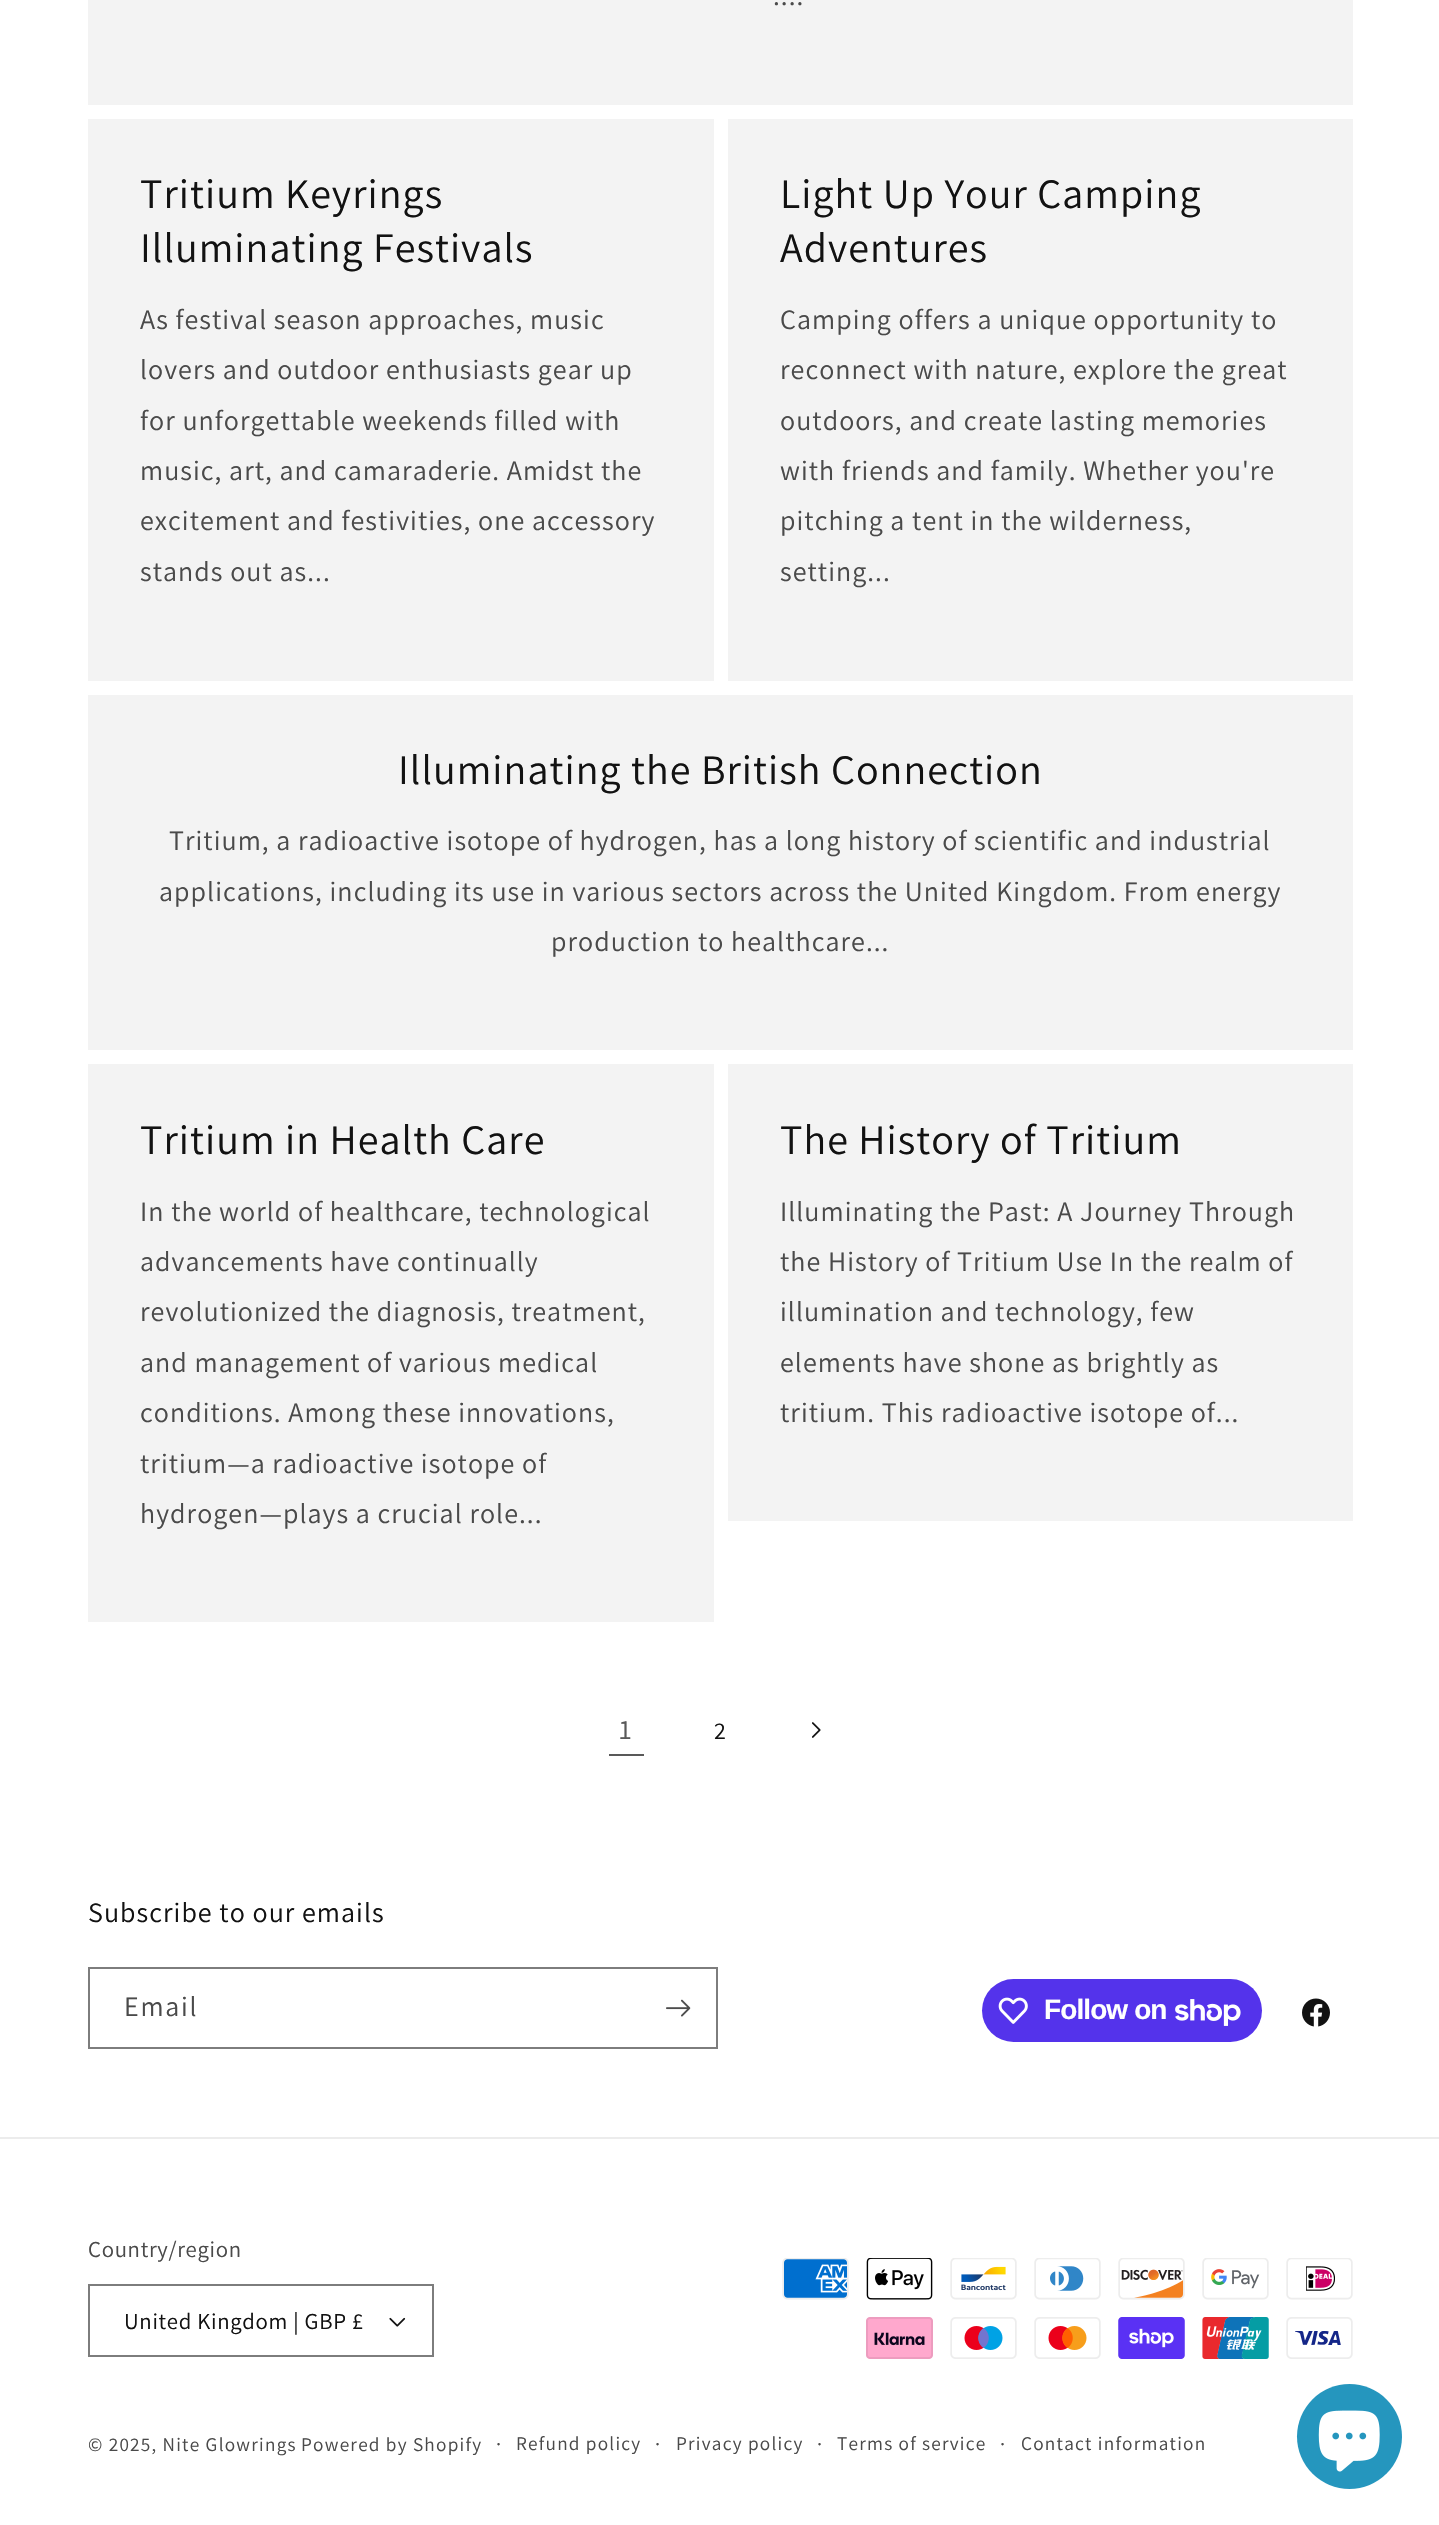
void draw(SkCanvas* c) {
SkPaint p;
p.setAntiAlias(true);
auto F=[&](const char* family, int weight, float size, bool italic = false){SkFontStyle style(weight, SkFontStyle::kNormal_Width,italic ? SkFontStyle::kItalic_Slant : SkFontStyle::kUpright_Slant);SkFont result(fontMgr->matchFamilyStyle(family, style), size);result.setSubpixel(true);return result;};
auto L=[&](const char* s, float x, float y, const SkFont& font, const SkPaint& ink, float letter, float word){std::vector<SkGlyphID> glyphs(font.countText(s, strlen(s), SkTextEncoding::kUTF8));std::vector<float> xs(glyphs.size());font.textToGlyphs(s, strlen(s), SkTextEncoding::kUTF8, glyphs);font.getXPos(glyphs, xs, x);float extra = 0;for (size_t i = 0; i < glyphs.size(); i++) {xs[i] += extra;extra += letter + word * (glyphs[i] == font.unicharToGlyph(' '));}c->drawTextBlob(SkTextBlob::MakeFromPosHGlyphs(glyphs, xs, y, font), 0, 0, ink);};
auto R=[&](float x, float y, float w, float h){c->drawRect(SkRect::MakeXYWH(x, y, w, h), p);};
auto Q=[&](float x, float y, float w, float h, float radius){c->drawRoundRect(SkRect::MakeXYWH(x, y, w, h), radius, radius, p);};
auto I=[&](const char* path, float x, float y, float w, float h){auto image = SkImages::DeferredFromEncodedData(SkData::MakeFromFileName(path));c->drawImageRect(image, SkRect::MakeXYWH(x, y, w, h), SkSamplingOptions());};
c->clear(0xffffffff);
p.setColor(0xfff3f3f3);
R(88,0,1265,105);
auto f1 = F("Assistant",400,28);
p.setColor(0xff4a4a4a);
L("....",773,5,f1,p,1.05,0);
p.setColor(0xfff3f3f3);
R(88,119,626,562);
auto f2 = F("Assistant",400,42);
p.setColor(0xff121212);
L("Tritium Keyrings",140,208,f2,p,1.05,0);
L("Illuminating Festivals",140,262,f2,p,1.05,0);
p.setColor(0xff4a4a4a);
L("As festival season approaches, music",140,329,f1,p,1.05,0);
L("lovers and outdoor enthusiasts gear up",140,379,f1,p,1.05,0);
L("for unforgettable weekends filled with",140,430,f1,p,1.05,0);
L("music, art, and camaraderie. Amidst the",140,480,f1,p,1.05,0);
L("excitement and festivities, one accessory",140,530,f1,p,1.05,0);
L("stands out as...",140,581,f1,p,1.05,0);
p.setColor(0xfff3f3f3);
R(728,119,625,562);
p.setColor(0xff121212);
L("Light Up Your Camping",780,208,f2,p,1.05,0);
L("Adventures",780,262,f2,p,1.05,0);
p.setColor(0xff4a4a4a);
L("Camping offers a unique opportunity to",780,329,f1,p,1.05,0);
L("reconnect with nature, explore the great",780,379,f1,p,1.05,0);
L("outdoors, and create lasting memories",780,430,f1,p,1.05,0);
L("with friends and family. Whether you're",780,480,f1,p,1.05,0);
L("pitching a tent in the wilderness,",780,530,f1,p,1.05,0);
L("setting...",780,581,f1,p,1.05,0);
p.setColor(0xfff3f3f3);
R(88,695,1265,355);
p.setColor(0xff121212);
L("Illuminating the British Connection",398,784,f2,p,1.05,0);
p.setColor(0xff4a4a4a);
L("Tritium, a radioactive isotope of hydrogen, has a long history of scientific and industrial",169,850,f1,p,1.05,0);
L("applications, including its use in various sectors across the United Kingdom. From energy",159,901,f1,p,1.05,0);
L("production to healthcare...",551,951,f1,p,1.05,0);
p.setColor(0xfff3f3f3);
R(88,1064,626,558);
p.setColor(0xff121212);
L("Tritium in Health Care",140,1154,f2,p,1.05,0);
p.setColor(0xff4a4a4a);
L("In the world of healthcare, technological",140,1221,f1,p,1.05,0);
L("advancements have continually",140,1271,f1,p,1.05,0);
L("revolutionized the diagnosis, treatment,",140,1321,f1,p,1.05,0);
L("and management of various medical",140,1372,f1,p,1.05,0);
L("conditions. Among these innovations,",140,1422,f1,p,1.05,0);
L("tritium—a radioactive isotope of",140,1473,f1,p,1.05,0);
L("hydrogen—plays a crucial role...",140,1523,f1,p,1.05,0);
p.setColor(0xfff3f3f3);
R(728,1064,625,457);
p.setColor(0xff121212);
L("The History of Tritium",780,1154,f2,p,1.05,0);
p.setColor(0xff4a4a4a);
L("Illuminating the Past: A Journey Through",780,1221,f1,p,1.05,0);
L("the History of Tritium Use In the realm of",780,1271,f1,p,1.05,0);
L("illumination and technology, few",780,1321,f1,p,1.05,0);
L("elements have shone as brightly as",780,1372,f1,p,1.05,0);
L("tritium. This radioactive isotope of...",780,1422,f1,p,1.05,0);
p.setColor(0xff595959);
L("1",619,1739,f1,p,1.05,0);
R(609,1754,35,2);
auto f3 = F("Assistant",400,24);
p.setColor(0xff121212);
L("2",714,1739,f3,p,1.05,0);
I("1.png",812,1722,9,16);
L("Subscribe to our emails",88,1922,f1,p,1.05,0);
p.setStroke(true);
p.setStrokeWidth(2);
p.setColor(0xff7d7d7d);
c->drawRect(SkRect::MakeXYWH(89,1968,628,80),p);
p.setStroke(false);
p.setColor(0xff4a4a4a);
L("Email",124,2016,f1,p,1.75,0);
I("2.png",666,1999,25,18);
p.setColor(0xff5433eb);
Q(982,1979,280,63,31.5);
I("3.png",998,1997,30,27);
auto f4 = F("Liberation Sans",700,28);
p.setColor(0xffffffff);
L("Follow on",1044,2019,f4,p,-.9,0);
I("4.png",1175,1999,66,27);
I("5.png",1302,1998,28,29);
p.setColor(0xffececec);
R(0,2137,1439,2);
auto f5 = F("Assistant",400,22.75);
p.setColor(0xff4a4a4a);
L("Country/region",88,2257,f5,p,.7,0);
I("6.png",389,2317,17,10);
p.setStroke(true);
p.setColor(0xff7d7d7d);
c->drawRect(SkRect::MakeXYWH(89,2285,344,71),p);
p.setStroke(false);
p.setColor(0xff121212);
L("United Kingdom | GBP £",124,2329,f5,p,.7,0);
I("7.png",782,2258,67,42);
I("8.png",866,2258,67,42);
I("9.png",950,2258,67,42);
I("10.png",1034,2258,67,42);
I("11.png",1118,2258,67,42);
I("12.png",1202,2258,67,42);
I("13.png",1286,2258,67,42);
I("14.png",866,2317,67,42);
I("15.png",950,2317,67,42);
I("16.png",1034,2317,67,42);
I("17.png",1118,2317,67,42);
I("18.png",1202,2317,67,42);
I("19.png",1286,2317,67,42);
auto f6 = F("Assistant",400,19.25);
p.setColor(0xff4a4a4a);
L("© 2025, Nite Glowrings",88,2451,f6,p,1.25,0);
L("Powered by Shopify",301,2451,f6,p,1.25,0);
auto f7 = F("Assistant",400,21);
L("·",496,2451,f7,p,1.25,0);
L("Refund policy",516,2450,f6,p,1.25,0);
L("·",655,2451,f7,p,1.25,0);
L("Privacy policy",676,2450,f6,p,1.25,0);
L("·",817,2451,f7,p,1.25,0);
L("Terms of service",837,2450,f6,p,1.25,0);
L("·",1000,2451,f7,p,1.25,0);
L("Contact information",1021,2450,f6,p,1.25,0);
p.setColor(0xff2596be);
c->drawCircle(1349.5,2436.5,52.5,p);
I("20.png",1318,2410,62,62);
}
